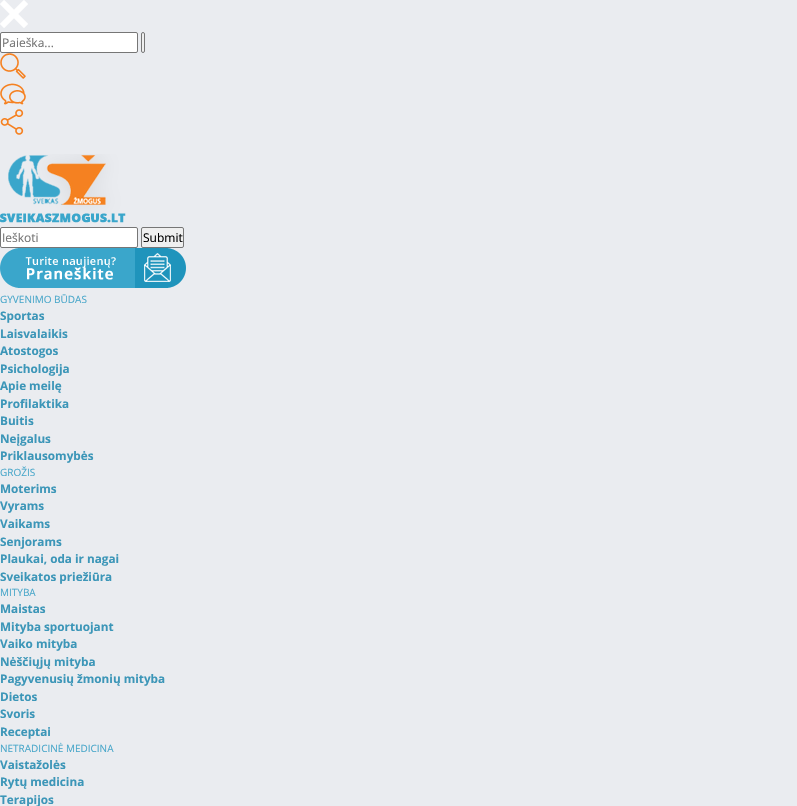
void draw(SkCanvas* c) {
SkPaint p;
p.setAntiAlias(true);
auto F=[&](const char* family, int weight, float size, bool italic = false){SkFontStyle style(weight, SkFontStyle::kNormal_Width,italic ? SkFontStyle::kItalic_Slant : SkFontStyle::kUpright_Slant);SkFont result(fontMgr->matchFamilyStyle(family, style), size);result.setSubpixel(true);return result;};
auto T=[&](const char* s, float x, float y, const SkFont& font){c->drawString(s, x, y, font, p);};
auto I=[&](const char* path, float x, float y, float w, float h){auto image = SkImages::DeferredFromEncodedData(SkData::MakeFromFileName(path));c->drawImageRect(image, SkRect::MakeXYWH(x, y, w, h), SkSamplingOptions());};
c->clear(0xffeaecf0);
I("1.png",0,0,28,28);
p.setColor(0xffffffff);
c->drawRoundRect(SkRect::MakeXYWH(.5,32.5,137,20),1.5,1.5,p);
p.setStroke(true);
p.setStrokeWidth(1);
p.setColor(0xff767676);
c->drawRoundRect(SkRect::MakeXYWH(.5,32.5,137,20),1.5,1.5,p);
auto f1 = F("Open Sans",400,12);
p.setStroke(false);
p.setColor(0xff757575);
T("Paieška...",2,47,f1);
p.setColor(0xffefefef);
c->drawRoundRect(SkRect::MakeXYWH(141.5,32.5,3,20),1.5,1.5,p);
p.setStroke(true);
p.setColor(0xff767676);
c->drawRoundRect(SkRect::MakeXYWH(141.5,32.5,3,20),1.5,1.5,p);
I("2.png",0,53,26,26);
I("3.png",0,83,26,22);
I("4.png",0,109,24,26);
I("5.png",0,154,126,69);
p.setStroke(false);
p.setColor(0xffffffff);
c->drawRoundRect(SkRect::MakeXYWH(.5,227.5,137,20),1.5,1.5,p);
p.setStroke(true);
p.setColor(0xff767676);
c->drawRoundRect(SkRect::MakeXYWH(.5,227.5,137,20),1.5,1.5,p);
p.setStroke(false);
p.setColor(0xff757575);
T("Ieškoti",2,242,f1);
p.setColor(0xffefefef);
c->drawRoundRect(SkRect::MakeXYWH(141.5,227.5,42,20),1.5,1.5,p);
p.setStroke(true);
p.setColor(0xff767676);
c->drawRoundRect(SkRect::MakeXYWH(141.5,227.5,42,20),1.5,1.5,p);
p.setStroke(false);
p.setColor(0xff000000);
T("Submit",143,242,f1);
I("6.png",0,248,186,40);
auto f2 = F("Open Sans",400,10);
p.setColor(0xff49a7ca);
T("GYVENIMO BŪDAS",0,303,f2);
auto f3 = F("Open Sans",700,11.75);
p.setColor(0xff3c96b8);
T("Sportas",0,320,f3);
T("Laisvalaikis",0,338,f3);
T("Atostogos",0,355,f3);
T("Psichologija",0,373,f3);
T("Apie meilę",0,390,f3);
T("Profilaktika",0,408,f3);
T("Buitis",0,425,f3);
T("Neįgalus",0,443,f3);
T("Priklausomybės",0,460,f3);
p.setColor(0xff49a7ca);
T("GROŽIS",0,476,f2);
p.setColor(0xff3c96b8);
T("Moterims",0,493,f3);
T("Vyrams",0,510,f3);
T("Vaikams",0,528,f3);
T("Senjorams",0,546,f3);
T("Plaukai, oda ir nagai",0,563,f3);
T("Sveikatos priežiūra",0,581,f3);
p.setColor(0xff49a7ca);
T("MITYBA",0,596,f2);
p.setColor(0xff3c96b8);
T("Maistas",0,613,f3);
T("Mityba sportuojant",0,631,f3);
T("Vaiko mityba",0,648,f3);
T("Nėščiųjų mityba",0,666,f3);
T("Pagyvenusių žmonių mityba",0,683,f3);
T("Dietos",0,701,f3);
T("Svoris",0,718,f3);
T("Receptai",0,736,f3);
p.setColor(0xff49a7ca);
T("NETRADICINĖ MEDICINA",0,752,f2);
p.setColor(0xff3c96b8);
T("Vaistažolės",0,769,f3);
T("Rytų medicina",0,786,f3);
T("Terapijos",0,804,f3);
}
